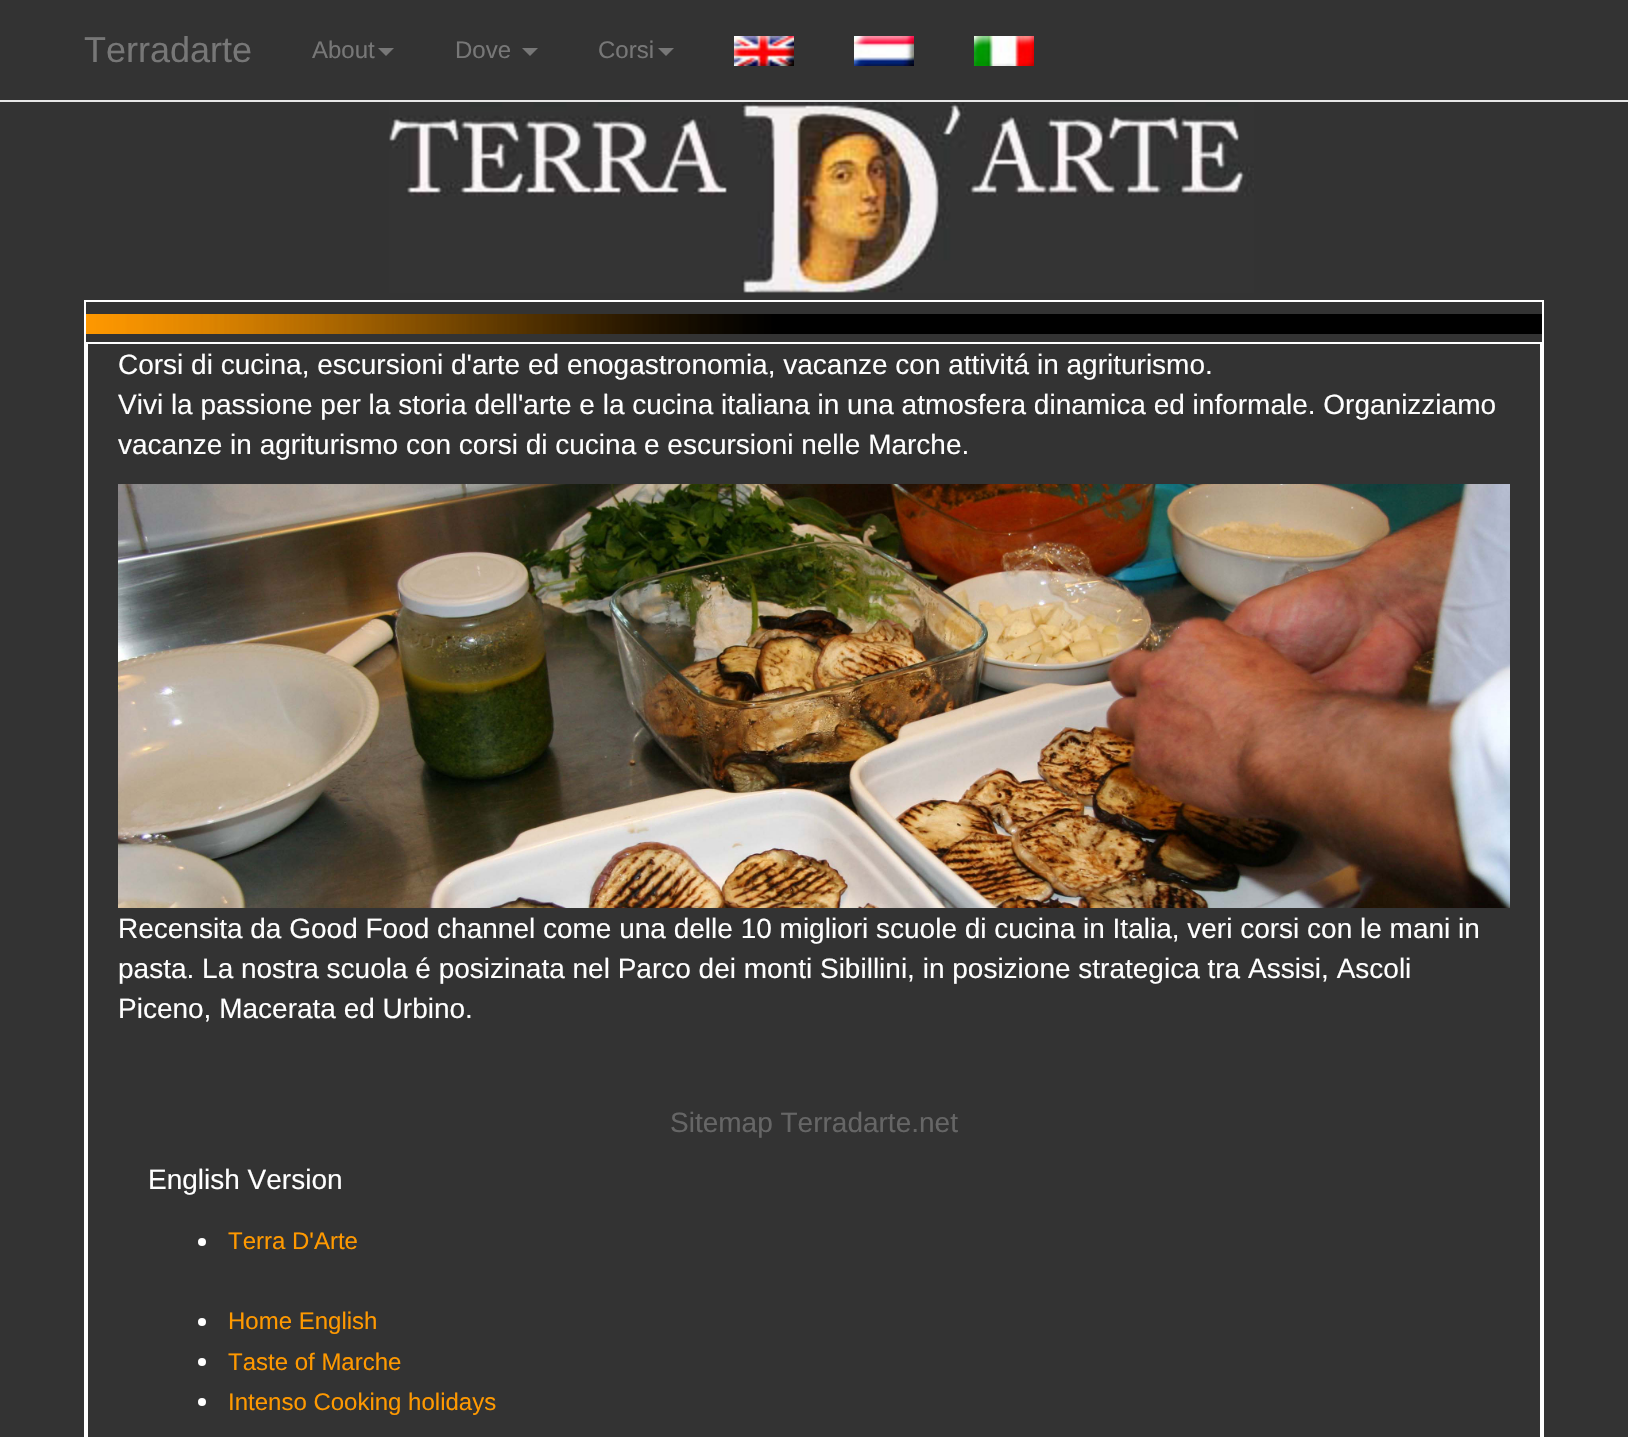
void draw(SkCanvas* c) {
SkPaint p;
p.setAntiAlias(true);
auto F=[&](const char* family, int weight, float size, bool italic = false){SkFontStyle style(weight, SkFontStyle::kNormal_Width,italic ? SkFontStyle::kItalic_Slant : SkFontStyle::kUpright_Slant);SkFont result(fontMgr->matchFamilyStyle(family, style), size);result.setSubpixel(true);return result;};
auto T=[&](const char* s, float x, float y, const SkFont& font){c->drawString(s, x, y, font, p);};
auto R=[&](float x, float y, float w, float h){c->drawRect(SkRect::MakeXYWH(x, y, w, h), p);};
auto I=[&](const char* path, float x, float y, float w, float h){auto image = SkImages::DeferredFromEncodedData(SkData::MakeFromFileName(path));c->drawImageRect(image, SkRect::MakeXYWH(x, y, w, h), SkSamplingOptions());};
auto P=[&](const char* data, bool evenOdd = false){SkPath result = *SkParsePath::FromSVGString(data);if (evenOdd) result.setFillType(SkPathFillType::kEvenOdd);return result;};
c->clear(0xff333333);
p.setColor(0xffe7e7e7);
R(0,100,1628,2);
auto f1 = F("Liberation Sans",400,36);
p.setColor(0xff777777);
T("Terradarte",84,62,f1);
auto f2 = F("Liberation Sans",400,24);
T("About",312,58,f2);
c->drawPath(P("M378 48h16l-8 8z"),p);
T("Dove",455,58,f2);
c->drawPath(P("M522 48h16l-8 8z"),p);
T("Corsi",598,58,f2);
c->drawPath(P("M658 48h16l-8 8z"),p);
I("1.png",734,36,60,30);
I("2.png",854,36,60,30);
I("3.png",974,36,60,30);
I("4.png",389,102,865,191);
p.setStroke(true);
p.setStrokeWidth(2);
p.setColor(0xffffffff);
c->drawRect(SkRect::MakeXYWH(85,301,1458,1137),p);
I("5.png",86,314,1456,20);
c->drawRect(SkRect::MakeXYWH(87,343,1454,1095),p);
auto f3 = F("Liberation Sans",400,28);
p.setStroke(false);
T("Corsi di cucina, escursioni d'arte ed enogastronomia, vacanze con attivitá in agriturismo.",118,374,f3);
T("Vivi la passione per la storia dell'arte e la cucina italiana in una atmosfera dinamica ed informale. Organizziamo",118,414,f3);
T("vacanze in agriturismo con corsi di cucina e escursioni nelle Marche.",118,454,f3);
I("6.png",118,484,1392,424);
T("Recensita da Good Food channel come una delle 10 migliori scuole di cucina in Italia, veri corsi con le mani in",118,938,f3);
T("pasta. La nostra scuola é posizinata nel Parco dei monti Sibillini, in posizione strategica tra Assisi, Ascoli",118,978,f3);
T("Piceno, Macerata ed Urbino.",118,1018,f3);
p.setColor(0xff666666);
T("Sitemap Terradarte.net",670,1132,f3);
p.setColor(0xffffffff);
T("English Version",148,1189,f3);
c->drawCircle(202,1242,4,p);
p.setColor(0xffff9900);
T("Terra D'Arte",228,1249,f2);
p.setColor(0xffffffff);
c->drawCircle(202,1322,4,p);
p.setColor(0xffff9900);
T("Home English",228,1329,f2);
p.setColor(0xffffffff);
c->drawCircle(202,1362,4,p);
p.setColor(0xffff9900);
T("Taste of Marche",228,1370,f2);
p.setColor(0xffffffff);
c->drawCircle(202,1402,4,p);
p.setColor(0xffff9900);
T("Intenso Cooking holidays",228,1410,f2);
}
